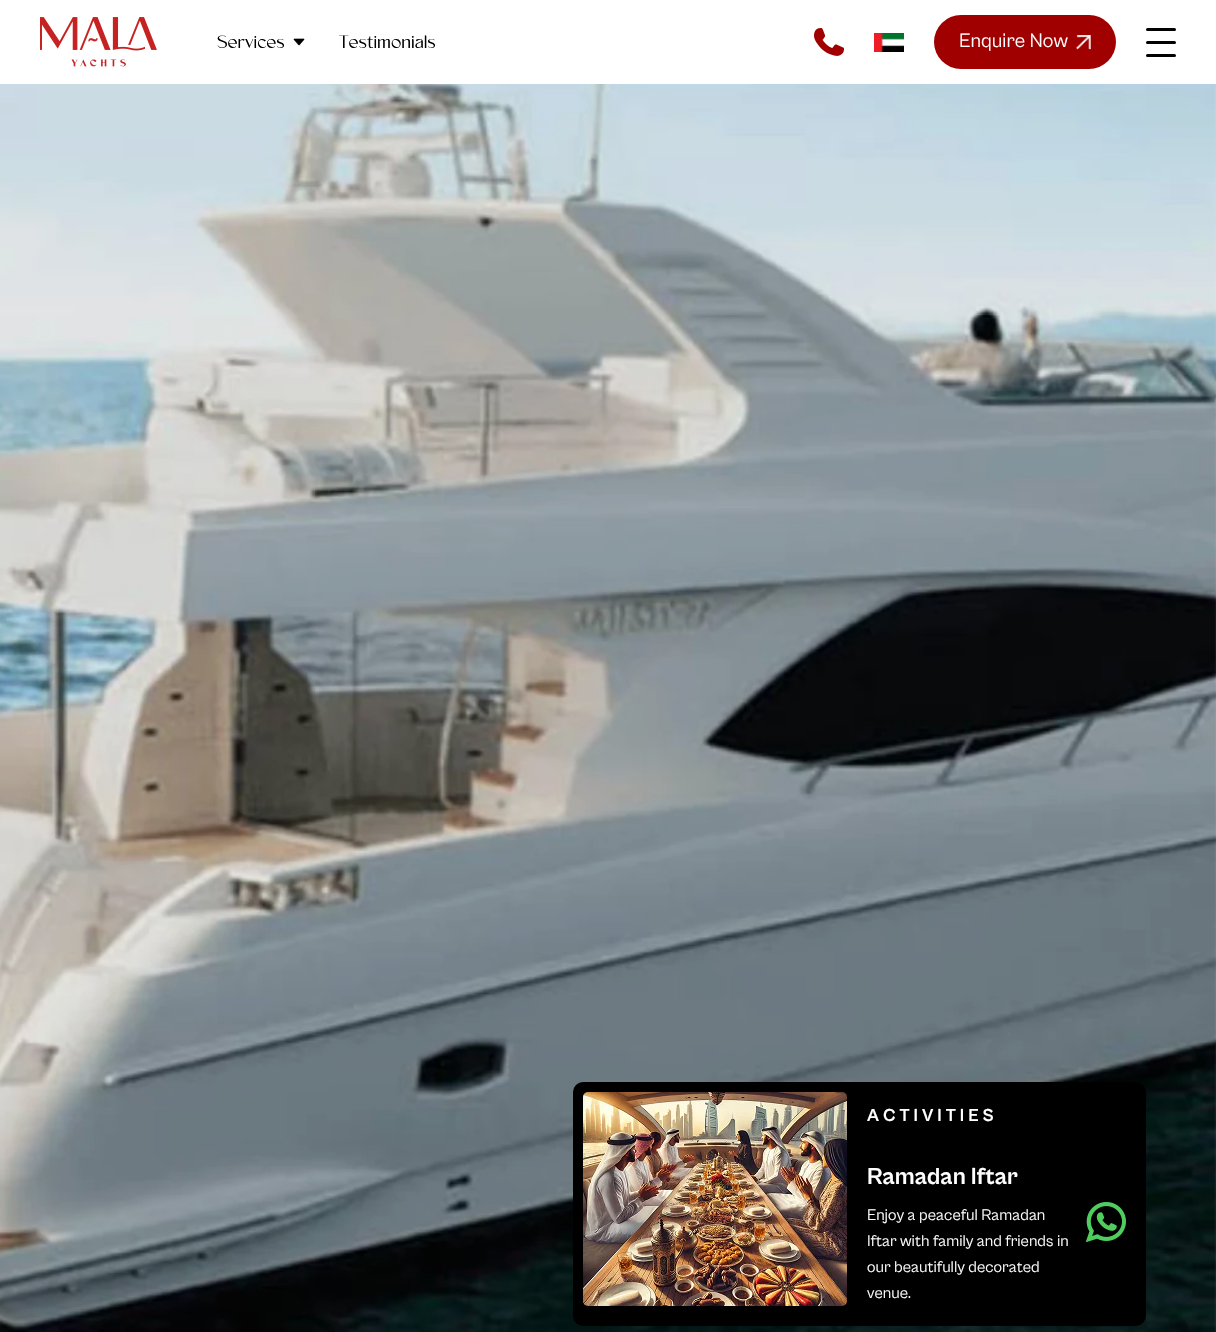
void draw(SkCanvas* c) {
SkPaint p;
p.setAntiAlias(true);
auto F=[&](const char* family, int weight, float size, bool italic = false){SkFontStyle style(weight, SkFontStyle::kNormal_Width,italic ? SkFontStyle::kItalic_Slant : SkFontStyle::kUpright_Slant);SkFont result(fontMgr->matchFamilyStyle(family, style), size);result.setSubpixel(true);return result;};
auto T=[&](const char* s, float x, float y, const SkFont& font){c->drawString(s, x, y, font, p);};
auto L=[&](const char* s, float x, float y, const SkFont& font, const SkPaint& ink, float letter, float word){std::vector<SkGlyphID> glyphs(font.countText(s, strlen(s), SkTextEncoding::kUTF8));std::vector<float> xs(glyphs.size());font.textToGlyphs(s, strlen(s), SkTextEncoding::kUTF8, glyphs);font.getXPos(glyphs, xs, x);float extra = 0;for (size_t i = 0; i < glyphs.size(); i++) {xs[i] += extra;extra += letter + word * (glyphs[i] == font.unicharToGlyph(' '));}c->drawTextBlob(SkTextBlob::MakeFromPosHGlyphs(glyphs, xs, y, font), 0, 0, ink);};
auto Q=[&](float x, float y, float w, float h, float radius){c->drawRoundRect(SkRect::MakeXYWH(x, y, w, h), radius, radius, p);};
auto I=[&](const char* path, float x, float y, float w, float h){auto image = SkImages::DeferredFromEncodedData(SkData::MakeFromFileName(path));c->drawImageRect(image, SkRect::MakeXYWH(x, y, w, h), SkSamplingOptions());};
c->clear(0xffffffff);
I("1.png",40,17,117,50);
auto f1 = F("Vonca",400,18);
p.setColor(0xff000000);
T("Services",217,48,f1);
I("2.png",293,38,12,8);
T("Testimonials",339,48,f1);
I("3.png",814,28,30,28);
I("4.png",874,33,30,19);
p.setColor(0xffa00000);
Q(934,15,182,54,27);
auto f2 = F("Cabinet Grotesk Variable",400,20);
p.setColor(0xffffffff);
T("Enquire Now",959,47,f2);
I("5.png",1076,35,15,15);
p.setColor(0xff000000);
Q(1146,28,30,3,1.5);
Q(1146,41,30,3,1.5);
Q(1146,54,30,3,1.5);
I("6.png",0,84,1216,1248);
Q(573,1082,573,244,10);
I("7.png",583,1092,264,214);
auto f3 = F("Cabinet Grotesk Variable",700,18);
p.setColor(0xffffffff);
L("ACTIVITIES",867,1121,f3,p,4,0);
auto f4 = F("Cabinet Grotesk Variable",700,24);
T("Ramadan Iftar",867,1184,f4);
auto f5 = F("Cabinet Grotesk Variable",400,16);
T("Enjoy a peaceful Ramadan",867,1220,f5);
T("Iftar with family and friends in",867,1246,f5);
T("our beautifully decorated",867,1272,f5);
T("venue.",867,1298,f5);
I("8.png",1086,1202,40,40);
}
